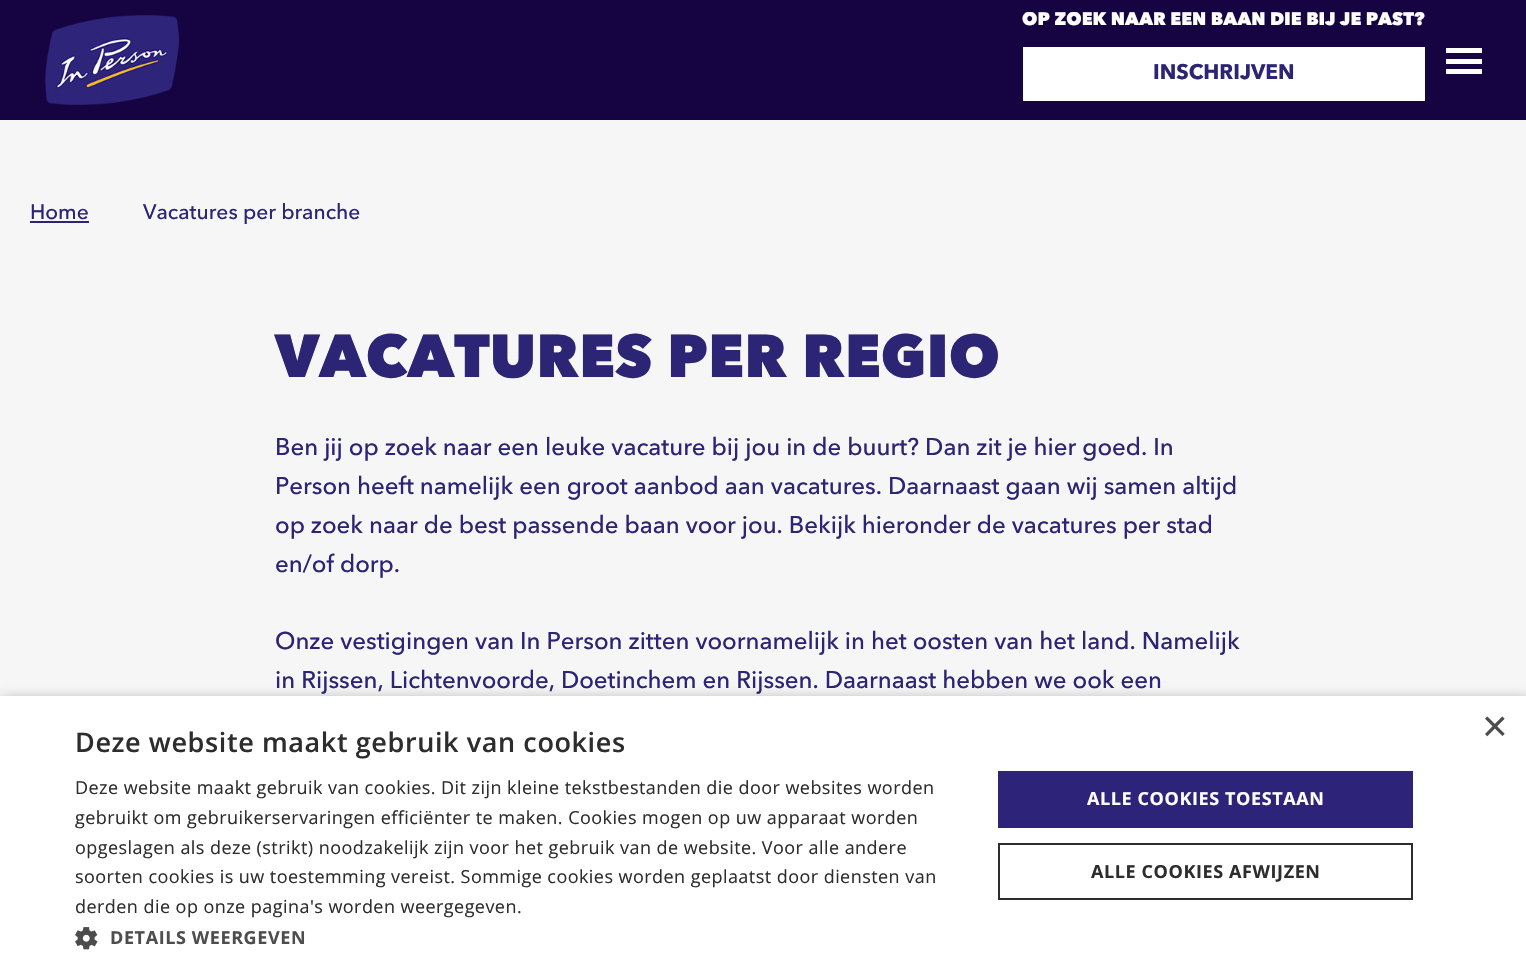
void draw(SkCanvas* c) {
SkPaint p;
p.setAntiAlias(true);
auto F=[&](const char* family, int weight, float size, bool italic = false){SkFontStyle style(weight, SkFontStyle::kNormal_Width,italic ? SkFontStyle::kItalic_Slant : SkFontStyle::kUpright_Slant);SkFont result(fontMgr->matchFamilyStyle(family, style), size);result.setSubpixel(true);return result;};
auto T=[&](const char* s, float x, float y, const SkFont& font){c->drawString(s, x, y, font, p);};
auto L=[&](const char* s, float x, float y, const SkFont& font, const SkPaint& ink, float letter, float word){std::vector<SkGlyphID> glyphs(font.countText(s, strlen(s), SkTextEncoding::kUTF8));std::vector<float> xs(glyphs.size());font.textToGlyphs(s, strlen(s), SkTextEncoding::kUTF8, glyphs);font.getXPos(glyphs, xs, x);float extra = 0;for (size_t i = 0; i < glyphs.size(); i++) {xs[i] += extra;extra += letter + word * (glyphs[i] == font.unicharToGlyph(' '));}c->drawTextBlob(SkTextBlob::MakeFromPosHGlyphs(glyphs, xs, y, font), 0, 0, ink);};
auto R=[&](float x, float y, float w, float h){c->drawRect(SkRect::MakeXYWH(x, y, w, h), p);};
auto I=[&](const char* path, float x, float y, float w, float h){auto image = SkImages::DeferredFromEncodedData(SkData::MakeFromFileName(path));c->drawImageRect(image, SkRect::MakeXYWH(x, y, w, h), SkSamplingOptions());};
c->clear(0xfff6f6f6);
p.setColor(0xff160341);
R(0,0,1526,120);
I("1.png",45,15,134,90);
auto f1 = F("Avenir Next",900,18);
p.setColor(0xffffffff);
T("OP ZOEK NAAR EEN BAAN DIE BIJ JE PAST?",1022,25,f1);
R(1023,47,402,54);
auto f2 = F("avenir next",700,21);
p.setColor(0xff2c2475);
T("INSCHRIJVEN",1153,79,f2);
p.setColor(0xffffffff);
R(1446,48,36,5);
R(1446,59,36,5);
R(1446,69,36,5);
auto f3 = F("avenir next",500,21);
p.setColor(0xff2c2475);
T("Home",30,219,f3);
R(30,221,59,2);
T("Vacatures per branche",143,219,f3);
auto f4 = F("Avenir Next",900,59.9);
T("VACATURES PER REGIO",275,377,f4);
auto f5 = F("avenir next",500,24);
T("Ben jij op zoek naar een leuke vacature bij jou in de buurt? Dan zit je hier goed. In",275,455,f5);
T("Person heeft namelijk een groot aanbod aan vacatures. Daarnaast gaan wij samen altijd",275,494,f5);
T("op zoek naar de best passende baan voor jou. Bekijk hieronder de vacatures per stad",275,533,f5);
T("en/of dorp.",275,572,f5);
T("Onze vestigingen van In Person zitten voornamelijk in het oosten van het land. Namelijk",275,649,f5);
T("in Rijssen, Lichtenvoorde, Doetinchem en Rijssen. Daarnaast hebben we ook een",275,688,f5);
p.setColor(0x59000000);
p.setMaskFilter(SkMaskFilter::MakeBlur(kNormal_SkBlurStyle, 6));
c->drawRect(SkRect::MakeXYWH(2,699,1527,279),p);
p.setMaskFilter(nullptr);
p.setColor(0xffffffff);
R(0,696,1526,279);
auto f6 = F("Liberation Sans",400,44);
p.setColor(0xff4d4d4d);
T("×",1482,741,f6);
auto f7 = F("Open Sans",600,27);
p.setColor(0xff2d2d2d);
L("Deze website maakt gebruik van cookies",75,752,f7,p,.6,0);
auto f8 = F("Open Sans",400,18);
L("Deze website maakt gebruik van cookies. Dit zijn kleine tekstbestanden die door websites worden",75,794,f8,p,.45,0);
L("gebruikt om gebruikerservaringen efficiënter te maken. Cookies mogen op uw apparaat worden",75,824,f8,p,.45,0);
L("opgeslagen als deze (strikt) noodzakelijk zijn voor het gebruik van de website. Voor alle andere",75,854,f8,p,.45,0);
L("soorten cookies is uw toestemming vereist. Sommige cookies worden geplaatst door diensten van",75,883,f8,p,.45,0);
L("derden die op onze pagina's worden weergegeven.",75,913,f8,p,.45,0);
I("2.png",75,927,23,23);
auto f9 = F("Open Sans",700,18);
p.setColor(0xff4d4d4d);
L("DETAILS WEERGEVEN",110,944,f9,p,.6,0);
p.setColor(0xff2d247a);
R(998,771,415,57);
p.setColor(0xffffffff);
L("ALLE COOKIES TOESTAAN",1087,805,f9,p,.6,0);
p.setStroke(true);
p.setStrokeWidth(2);
p.setColor(0xff2d2d2d);
c->drawRect(SkRect::MakeXYWH(999,844,413,55),p);
p.setStroke(false);
L("ALLE COOKIES AFWIJZEN",1091,878,f9,p,.6,0);
}
